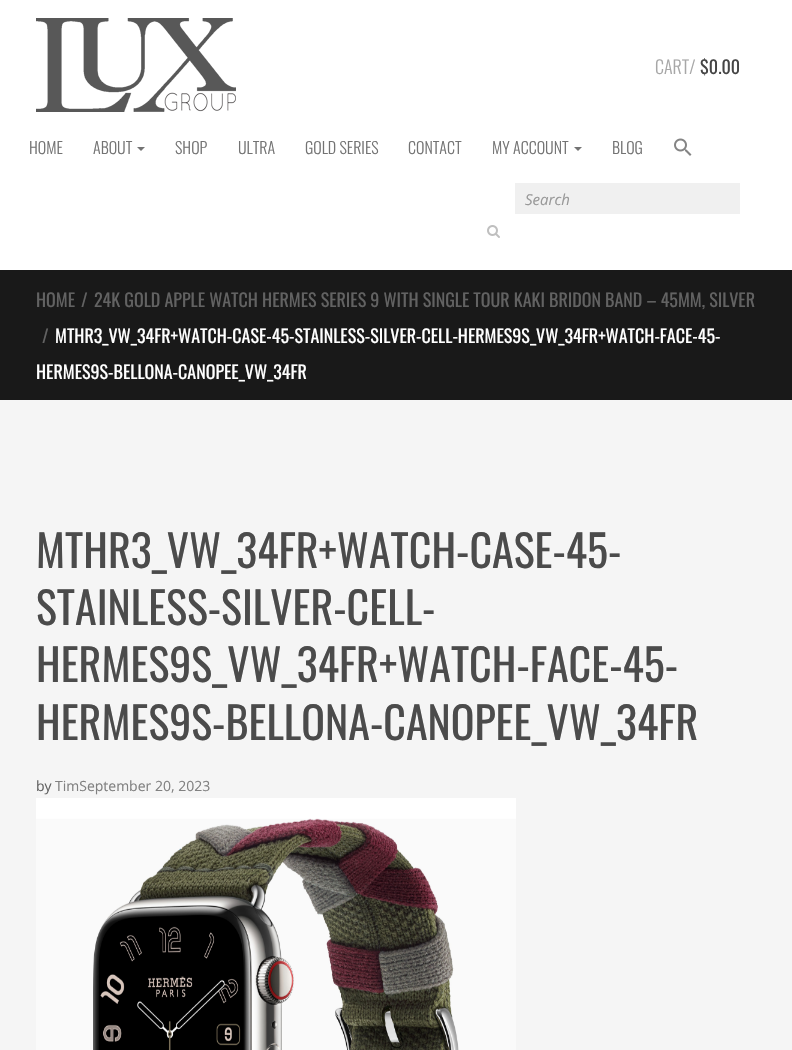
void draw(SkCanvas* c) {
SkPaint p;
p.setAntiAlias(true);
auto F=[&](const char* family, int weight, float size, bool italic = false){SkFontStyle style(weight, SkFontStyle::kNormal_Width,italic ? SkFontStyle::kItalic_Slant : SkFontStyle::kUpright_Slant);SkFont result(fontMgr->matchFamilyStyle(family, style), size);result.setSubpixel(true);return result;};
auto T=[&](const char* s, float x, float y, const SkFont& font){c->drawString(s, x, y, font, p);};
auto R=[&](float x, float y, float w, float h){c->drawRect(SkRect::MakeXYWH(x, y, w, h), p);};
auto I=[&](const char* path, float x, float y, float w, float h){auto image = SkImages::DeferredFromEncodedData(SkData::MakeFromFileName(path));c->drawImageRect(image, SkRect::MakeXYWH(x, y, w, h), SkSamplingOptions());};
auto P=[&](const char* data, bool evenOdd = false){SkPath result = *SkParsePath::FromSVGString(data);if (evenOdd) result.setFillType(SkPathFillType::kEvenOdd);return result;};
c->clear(0xffffffff);
I("1.png",36,18,200,94);
auto f1 = F("Oswald",300,18);
p.setColor(0xffa7a7a7);
T("CART/",655,74,f1);
auto f2 = F("Oswald",400,18);
p.setColor(0xff454545);
T("$0.00",700,74,f2);
auto f3 = F("Oswald",300,16);
p.setColor(0xff737373);
T("HOME",29,154,f3);
T("ABOUT",93,154,f3);
c->drawPath(P("M137 147h8l-4 4z"),p);
T("SHOP",175,154,f3);
T("ULTRA",238,154,f3);
T("GOLD SERIES",305,154,f3);
T("CONTACT",408,154,f3);
T("MY ACCOUNT",492,154,f3);
c->drawPath(P("M574 147h8l-4 4z"),p);
T("BLOG",612,154,f3);
I("2.png",674,138,18,18);
p.setColor(0xfff0f0f0);
R(515,183,225,31);
auto f4 = F("Open Sans",400,15,true);
p.setColor(0xff999999);
T("Search",525,205,f4);
I("3.png",487,225,13,13);
p.setColor(0xff191919);
R(0,270,792,130);
p.setColor(0xff626262);
T("HOME",36,307,f2);
T("/",81,307,f2);
T("24K GOLD APPLE WATCH HERMES SERIES 9 WITH SINGLE TOUR KAKI BRIDON BAND – 45MM, SILVER",94,307,f2);
T("/",42,343,f2);
p.setColor(0xffffffff);
T("MTHR3_VW_34FR+WATCH-CASE-45-STAINLESS-SILVER-CELL-HERMES9S_VW_34FR+WATCH-FACE-45-",55,343,f2);
T("HERMES9S-BELLONA-CANOPEE_VW_34FR",36,379,f2);
p.setColor(0xfff5f5f5);
R(0,400,792,650);
auto f5 = F("Oswald",400,44);
p.setColor(0xff4b4b4b);
T("MTHR3_VW_34FR+WATCH-CASE-45-",36,568,f5);
T("STAINLESS-SILVER-CELL-",36,625,f5);
T("HERMES9S_VW_34FR+WATCH-FACE-45-",36,682,f5);
T("HERMES9S-BELLONA-CANOPEE_VW_34FR",36,740,f5);
auto f6 = F("Open Sans",400,14);
p.setColor(0xff626262);
T("by",36,791,f6);
p.setColor(0xff818181);
T("TimSeptember 20, 2023",55,791,f6);
I("4.png",36,798,480,252);
}
